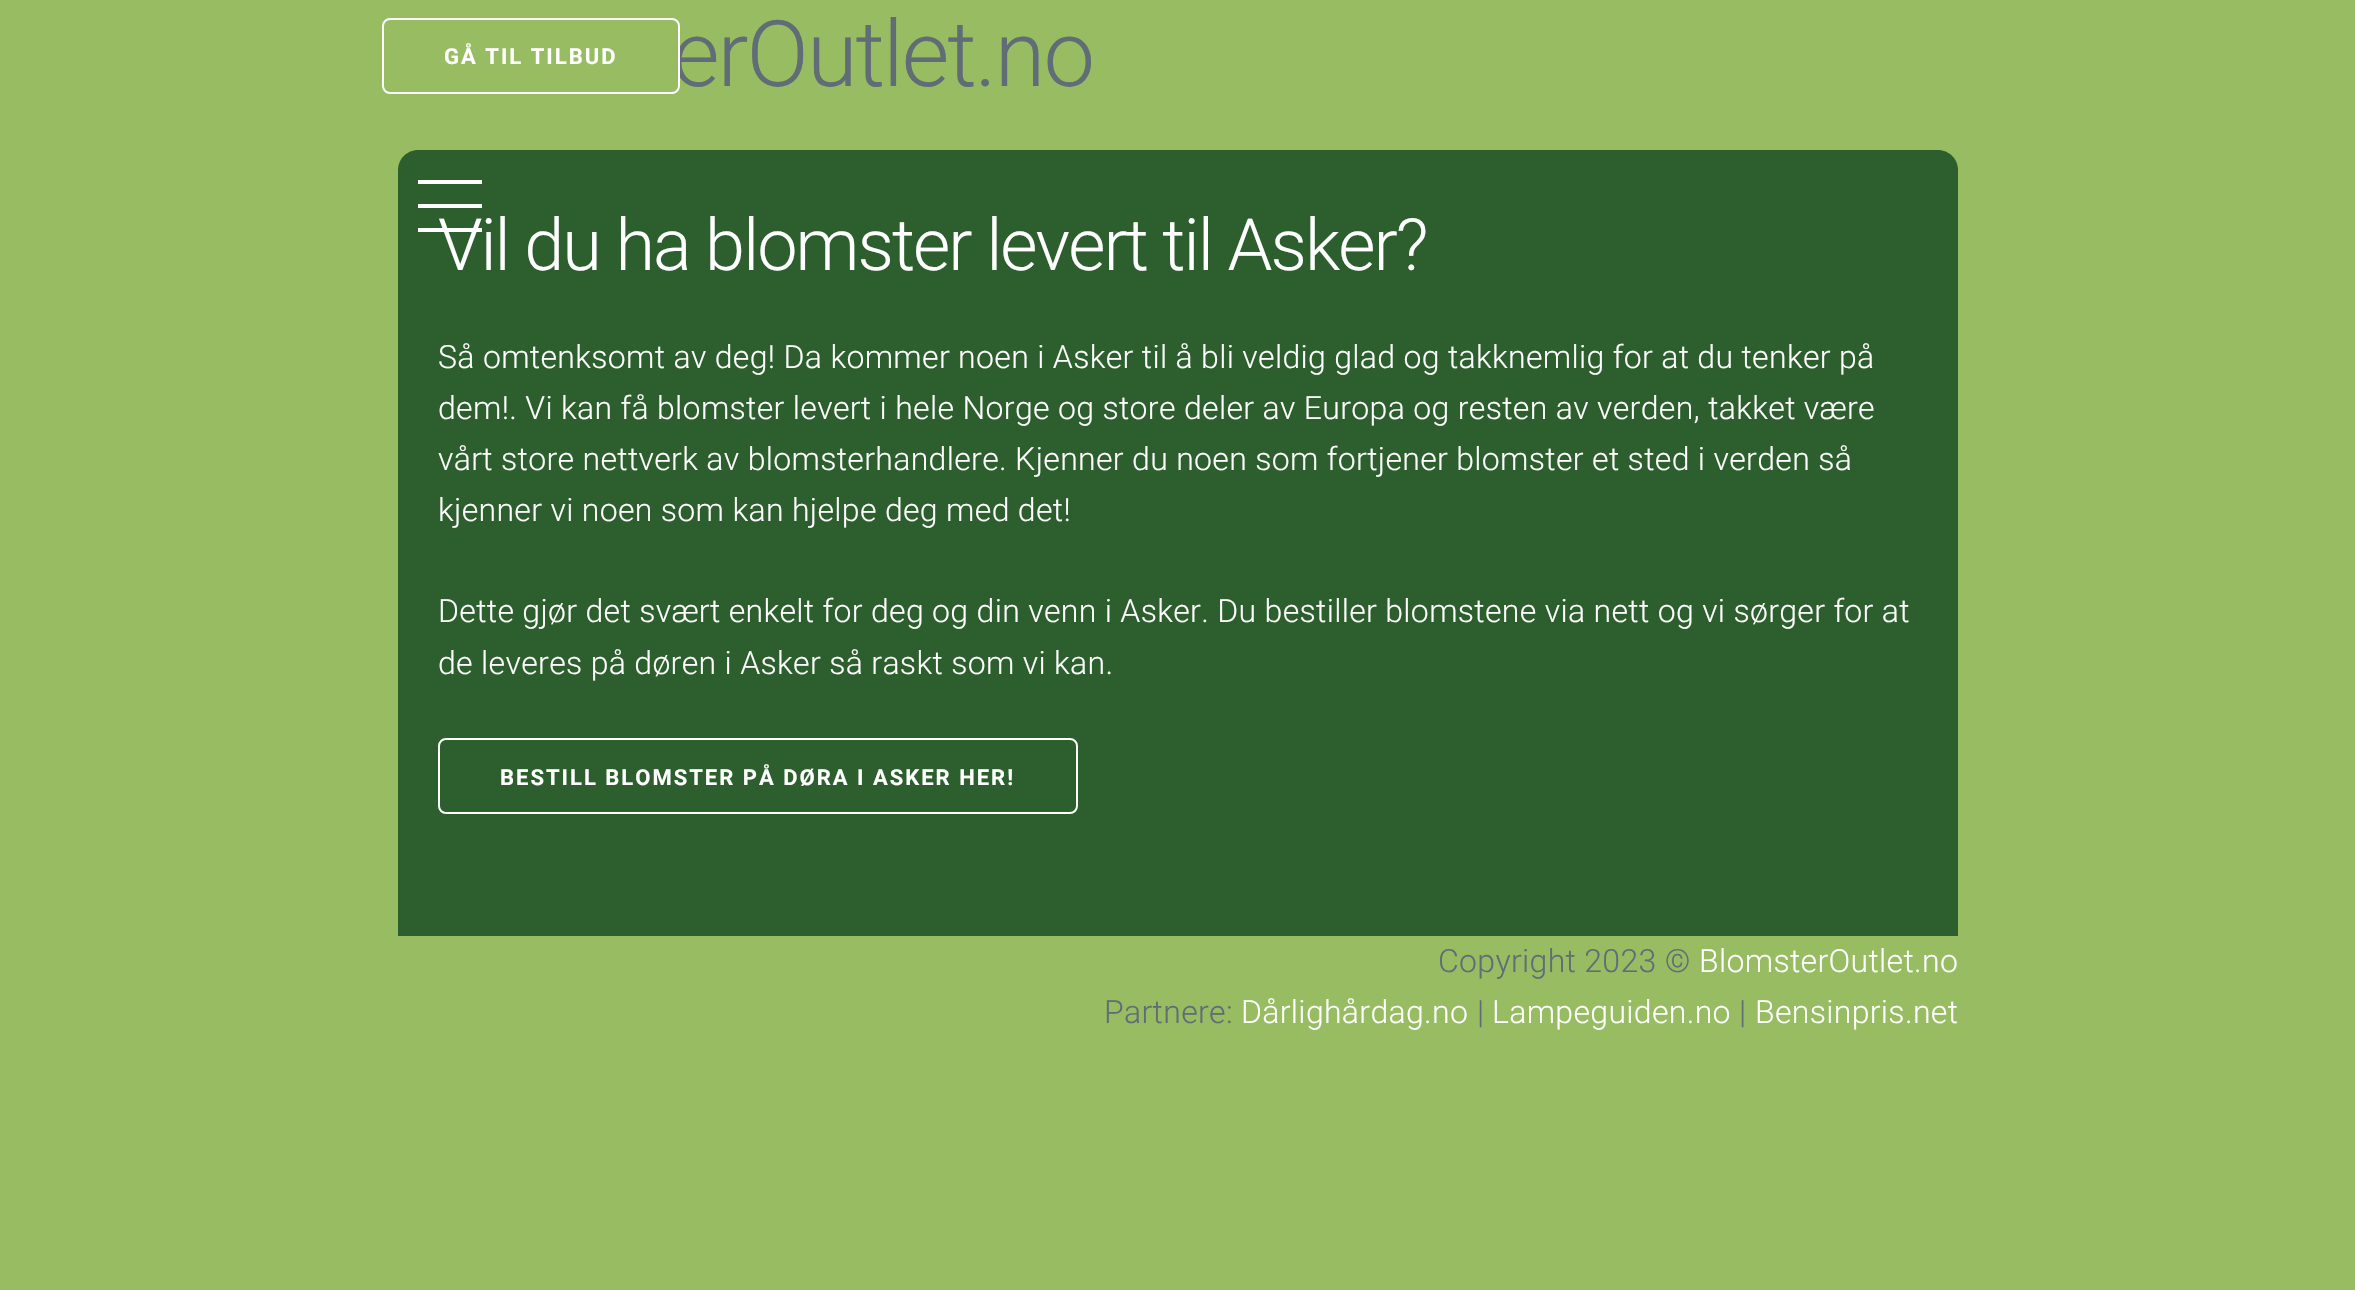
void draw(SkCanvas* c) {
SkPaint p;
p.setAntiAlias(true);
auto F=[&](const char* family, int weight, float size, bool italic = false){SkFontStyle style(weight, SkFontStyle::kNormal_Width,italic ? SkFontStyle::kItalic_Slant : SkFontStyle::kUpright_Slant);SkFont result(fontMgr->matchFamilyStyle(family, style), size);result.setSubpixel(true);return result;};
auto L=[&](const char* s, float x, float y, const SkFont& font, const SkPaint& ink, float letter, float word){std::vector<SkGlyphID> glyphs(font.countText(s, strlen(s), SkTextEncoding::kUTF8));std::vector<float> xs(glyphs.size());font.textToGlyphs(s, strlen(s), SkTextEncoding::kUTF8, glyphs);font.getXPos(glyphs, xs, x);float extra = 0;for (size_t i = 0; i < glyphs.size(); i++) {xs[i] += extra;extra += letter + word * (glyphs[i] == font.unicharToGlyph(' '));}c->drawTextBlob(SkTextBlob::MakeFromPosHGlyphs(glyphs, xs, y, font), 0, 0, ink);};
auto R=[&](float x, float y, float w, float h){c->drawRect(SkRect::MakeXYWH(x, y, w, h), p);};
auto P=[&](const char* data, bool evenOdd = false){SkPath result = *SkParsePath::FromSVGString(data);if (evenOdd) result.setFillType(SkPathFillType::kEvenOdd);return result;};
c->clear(0xff97bc62);
p.setColor(0xff2c5f2d);
c->drawPath(P("M418 150h1520c11 0 20 9 20 20v32h-1560v-32c0-11 9-20 20-20z"),p);
auto f1 = F("Roboto",300,92);
p.setColor(0xff606c76);
L("erOutlet.no",672,86,f1,p,-2,0);
p.setColor(0xff97bc62);
c->drawRoundRect(SkRect::MakeXYWH(383,19,296,74),7,7,p);
p.setStroke(true);
p.setStrokeWidth(2);
p.setColor(0xffffffff);
c->drawRoundRect(SkRect::MakeXYWH(383,19,296,74),7,7,p);
auto f2 = F("Roboto",700,22);
p.setStroke(false);
L("GÅ TIL TILBUD",444,64,f2,p,2,0);
R(418,180,64,4);
p.setColor(0xff2c5f2d);
R(398,202,1560,734);
p.setColor(0xffffffff);
R(418,204,64,4);
R(418,228,64,4);
auto f3 = F("Roboto",300,72);
L("Vil du ha blomster levert til Asker?",438,270,f3,p,-2,0);
auto f4 = F("Roboto",300,32);
L("Så omtenksomt av deg! Da kommer noen i Asker til å bli veldig glad og takknemlig for at du tenker på",438,368,f4,p,.32,0);
L("dem!. Vi kan få blomster levert i hele Norge og store deler av Europa og resten av verden, takket være",438,419,f4,p,.32,0);
L("vårt store nettverk av blomsterhandlere. Kjenner du noen som fortjener blomster et sted i verden så",438,470,f4,p,.32,0);
L("kjenner vi noen som kan hjelpe deg med det!",438,521,f4,p,.32,0);
L("Dette gjør det svært enkelt for deg og din venn i Asker. Du bestiller blomstene via nett og vi sørger for at",438,622,f4,p,.32,0);
L("de leveres på døren i Asker så raskt som vi kan.",438,674,f4,p,.32,0);
p.setStroke(true);
c->drawRoundRect(SkRect::MakeXYWH(439,739,638,74),7,7,p);
p.setStroke(false);
L("BESTILL BLOMSTER PÅ DØRA I ASKER HER!",500,785,f2,p,2,0);
p.setColor(0xff606c76);
L("Copyright 2023 ©",1438,972,f4,p,.32,0);
p.setColor(0xffffffff);
L("BlomsterOutlet.no",1699,972,f4,p,.32,0);
p.setColor(0xff606c76);
L("Partnere:",1104,1023,f4,p,.32,0);
p.setColor(0xffffffff);
L("Dårlighårdag.no",1241,1023,f4,p,.32,0);
p.setColor(0xff606c76);
L("|",1477,1023,f4,p,.32,0);
p.setColor(0xffffffff);
L("Lampeguiden.no",1492,1023,f4,p,.32,0);
p.setColor(0xff606c76);
L("|",1739,1023,f4,p,.32,0);
p.setColor(0xffffffff);
L("Bensinpris.net",1755,1023,f4,p,.32,0);
}
